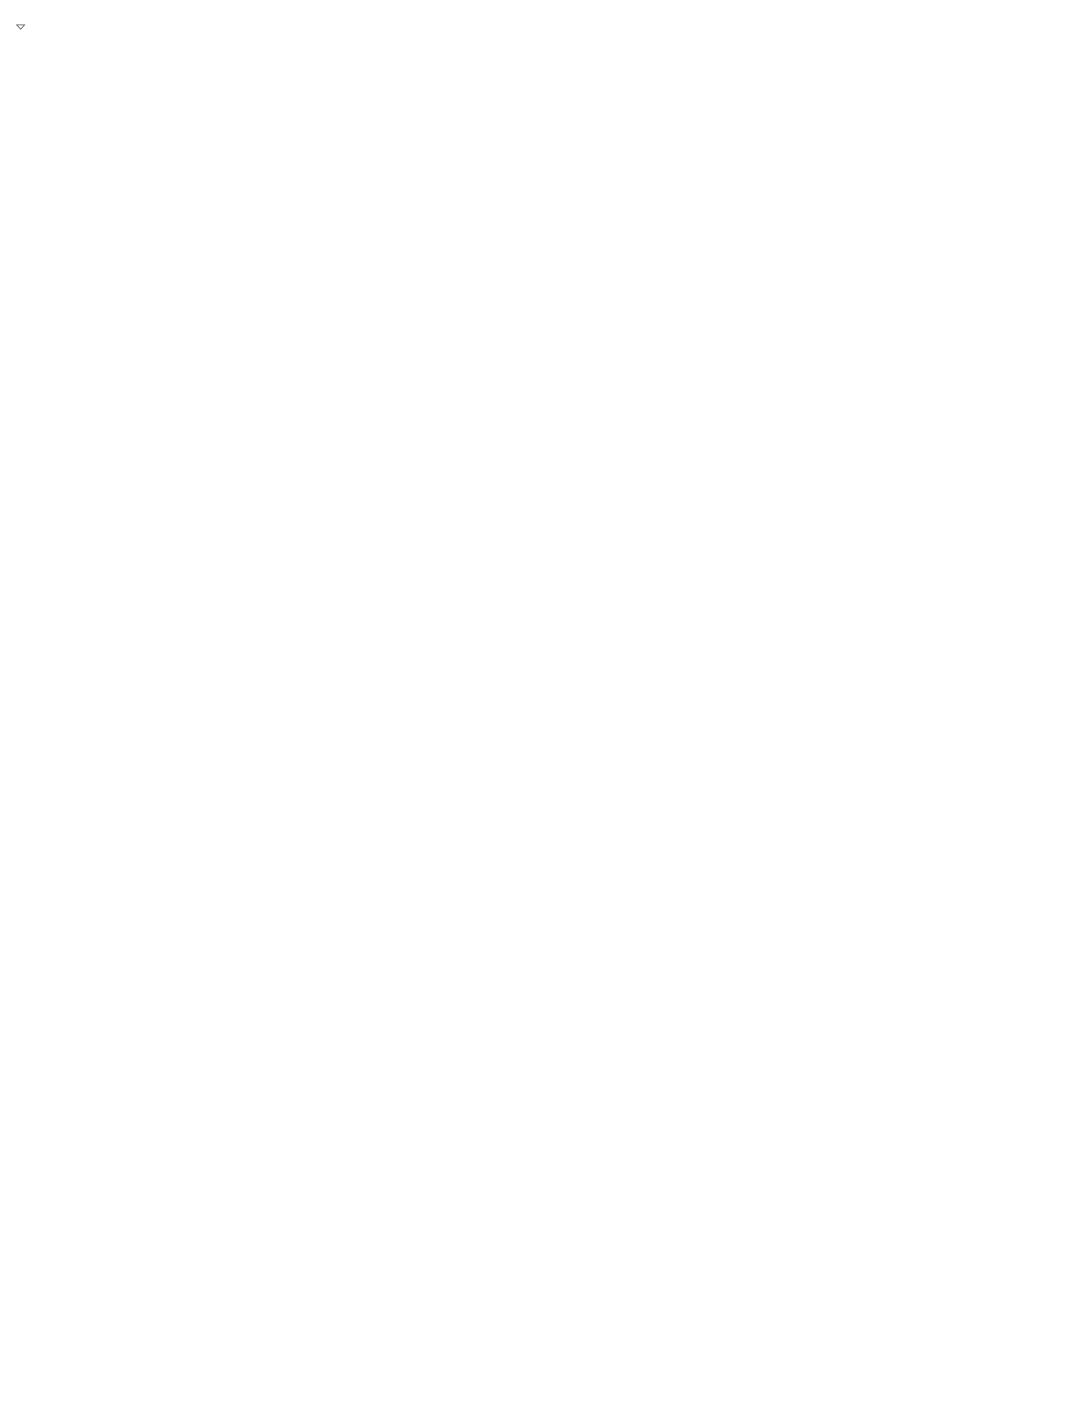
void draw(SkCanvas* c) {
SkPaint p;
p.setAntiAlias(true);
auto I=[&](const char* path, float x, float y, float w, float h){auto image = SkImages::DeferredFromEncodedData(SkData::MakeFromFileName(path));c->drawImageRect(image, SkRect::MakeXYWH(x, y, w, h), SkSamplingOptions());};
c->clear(0xffffffff);
I("1.png",15,24,11,6);
}
